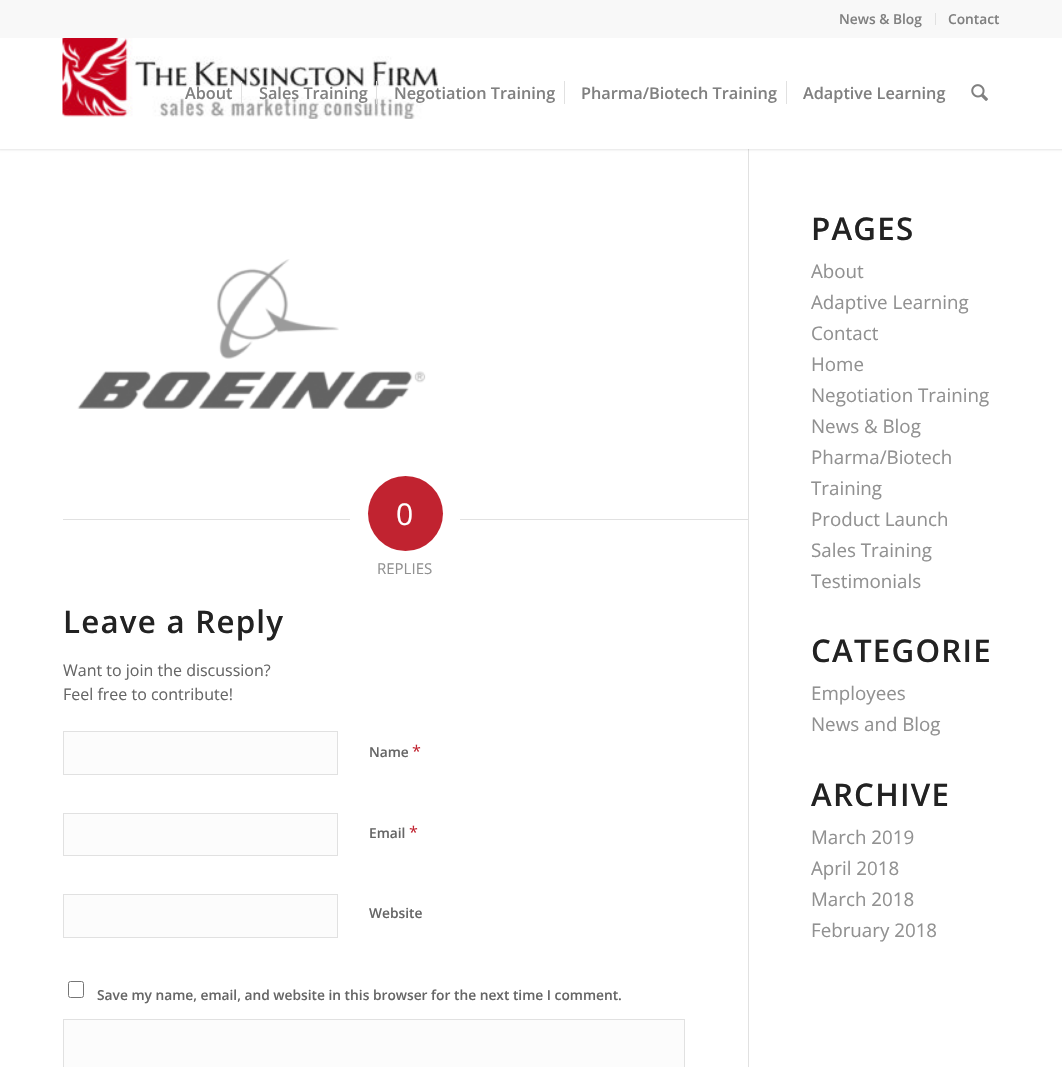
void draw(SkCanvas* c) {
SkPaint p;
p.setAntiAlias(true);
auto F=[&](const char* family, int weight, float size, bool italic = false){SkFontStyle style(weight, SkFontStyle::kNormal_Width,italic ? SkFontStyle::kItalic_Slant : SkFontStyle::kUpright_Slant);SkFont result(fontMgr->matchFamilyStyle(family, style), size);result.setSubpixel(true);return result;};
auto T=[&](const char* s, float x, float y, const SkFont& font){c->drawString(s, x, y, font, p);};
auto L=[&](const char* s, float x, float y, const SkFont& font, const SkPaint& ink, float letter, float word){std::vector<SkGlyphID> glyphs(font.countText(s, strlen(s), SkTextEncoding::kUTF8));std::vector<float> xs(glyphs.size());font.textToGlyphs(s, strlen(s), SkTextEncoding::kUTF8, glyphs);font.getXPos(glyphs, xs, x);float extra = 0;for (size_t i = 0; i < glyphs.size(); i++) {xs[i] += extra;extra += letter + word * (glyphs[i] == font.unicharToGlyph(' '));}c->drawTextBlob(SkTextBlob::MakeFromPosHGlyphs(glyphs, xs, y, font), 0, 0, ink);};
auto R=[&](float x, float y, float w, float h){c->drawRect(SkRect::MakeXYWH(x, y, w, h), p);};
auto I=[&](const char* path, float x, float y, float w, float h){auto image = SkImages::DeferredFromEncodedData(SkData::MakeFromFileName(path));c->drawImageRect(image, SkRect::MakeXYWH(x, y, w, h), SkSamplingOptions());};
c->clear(0xffffffff);
p.setColor(0xffe1e1e1);
R(748,149,1,918);
p.setColor(0x1a000000);
p.setMaskFilter(SkMaskFilter::MakeBlur(kNormal_SkBlurStyle, 1));
c->drawRect(SkRect::MakeXYWH(-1,-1,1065,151),p);
p.setMaskFilter(nullptr);
p.setColor(0xfff8f8f8);
R(0,0,1062,38);
p.setColor(0xffe1e1e1);
R(935,13,1,12);
auto f1 = F("Open Sans",600,13.75);
p.setColor(0xff808080);
T("News & Blog",839,24,f1);
T("Contact",948,24,f1);
p.setColor(0xffffffff);
R(0,38,1062,111);
I("1.png",62,38,376,81);
auto f2 = F("Open Sans",600,16.25);
p.setColor(0xff808080);
T("About",185,99,f2);
T("Sales Training",259,99,f2);
p.setColor(0xffe1e1e1);
R(241,81,1,23);
p.setColor(0xff808080);
T("Negotiation Training",394,99,f2);
p.setColor(0xffe1e1e1);
R(376,81,1,23);
p.setColor(0xff808080);
T("Pharma/Biotech Training",581,99,f2);
p.setColor(0xffe1e1e1);
R(564,81,1,23);
p.setColor(0xff808080);
T("Adaptive Learning",803,99,f2);
p.setColor(0xffe1e1e1);
R(786,81,1,23);
I("2.png",971,84,17,17);
I("3.png",77,259,349,150);
R(63,519,287,1);
p.setColor(0xffc12330);
c->drawCircle(405.5,513.5,37.5,p);
auto f3 = F("Open Sans",400,30);
p.setColor(0xffffffff);
T("0",396,525,f3);
p.setColor(0xffe1e1e1);
R(460,519,288,1);
auto f4 = F("Open Sans",400,15);
p.setColor(0xff919191);
T("REPLIES",377,574,f4);
auto f5 = F("Open Sans",600,31.25);
p.setColor(0xff222222);
L("Leave a Reply",63,633,f5,p,1.25,0);
auto f6 = F("Open Sans",400,16);
p.setColor(0xff666666);
T("Want to join the discussion?",63,676,f6);
T("Feel free to contribute!",63,700,f6);
p.setColor(0xfffcfcfc);
c->drawRect(SkRect::MakeXYWH(63.5,731.5,274,43),p);
p.setStroke(true);
p.setStrokeWidth(1);
p.setColor(0xffe1e1e1);
c->drawRect(SkRect::MakeXYWH(63.5,731.5,274,43),p);
p.setStroke(false);
p.setColor(0xff666666);
T("Name",369,757,f1);
auto f7 = F("Open Sans",400,16.25);
p.setColor(0xffc12330);
T("*",412,757,f7);
p.setColor(0xfffcfcfc);
c->drawRect(SkRect::MakeXYWH(63.5,813.5,274,42),p);
p.setStroke(true);
p.setColor(0xffe1e1e1);
c->drawRect(SkRect::MakeXYWH(63.5,813.5,274,42),p);
p.setStroke(false);
p.setColor(0xff666666);
T("Email",369,838,f1);
p.setColor(0xffc12330);
T("*",409,838,f7);
p.setColor(0xfffcfcfc);
c->drawRect(SkRect::MakeXYWH(63.5,894.5,274,43),p);
p.setStroke(true);
p.setColor(0xffe1e1e1);
c->drawRect(SkRect::MakeXYWH(63.5,894.5,274,43),p);
p.setStroke(false);
p.setColor(0xff666666);
T("Website",369,918,f1);
p.setStroke(true);
p.setColor(0xff767676);
c->drawRoundRect(SkRect::MakeXYWH(68.5,981.5,15,16),2,2,p);
p.setStroke(false);
p.setColor(0xff666666);
T("Save my name, email, and website in this browser for the next time I comment.",97,1000,f1);
p.setColor(0xfffcfcfc);
c->drawRect(SkRect::MakeXYWH(63.5,1019.5,621,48),p);
p.setStroke(true);
p.setColor(0xffe1e1e1);
c->drawRect(SkRect::MakeXYWH(63.5,1019.5,621,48),p);
p.setStroke(false);
p.setColor(0xff222222);
L("PAGES",811,240,f5,p,1.25,0);
auto f8 = F("Open Sans",400,18.75);
p.setColor(0xff919191);
T("About",811,278,f8);
T("Adaptive Learning",811,309,f8);
T("Contact",811,340,f8);
T("Home",811,371,f8);
T("Negotiation Training",811,402,f8);
T("News & Blog",811,433,f8);
T("Pharma/Biotech",811,464,f8);
T("Training",811,495,f8);
T("Product Launch",811,526,f8);
T("Sales Training",811,557,f8);
T("Testimonials",811,588,f8);
p.setColor(0xff222222);
L("CATEGORIE",811,662,f5,p,1.25,0);
p.setColor(0xff919191);
T("Employees",811,700,f8);
T("News and Blog",811,731,f8);
p.setColor(0xff222222);
L("ARCHIVE",811,806,f5,p,1.25,0);
p.setColor(0xff919191);
T("March 2019",811,844,f8);
T("April 2018",811,875,f8);
T("March 2018",811,906,f8);
T("February 2018",811,937,f8);
}
